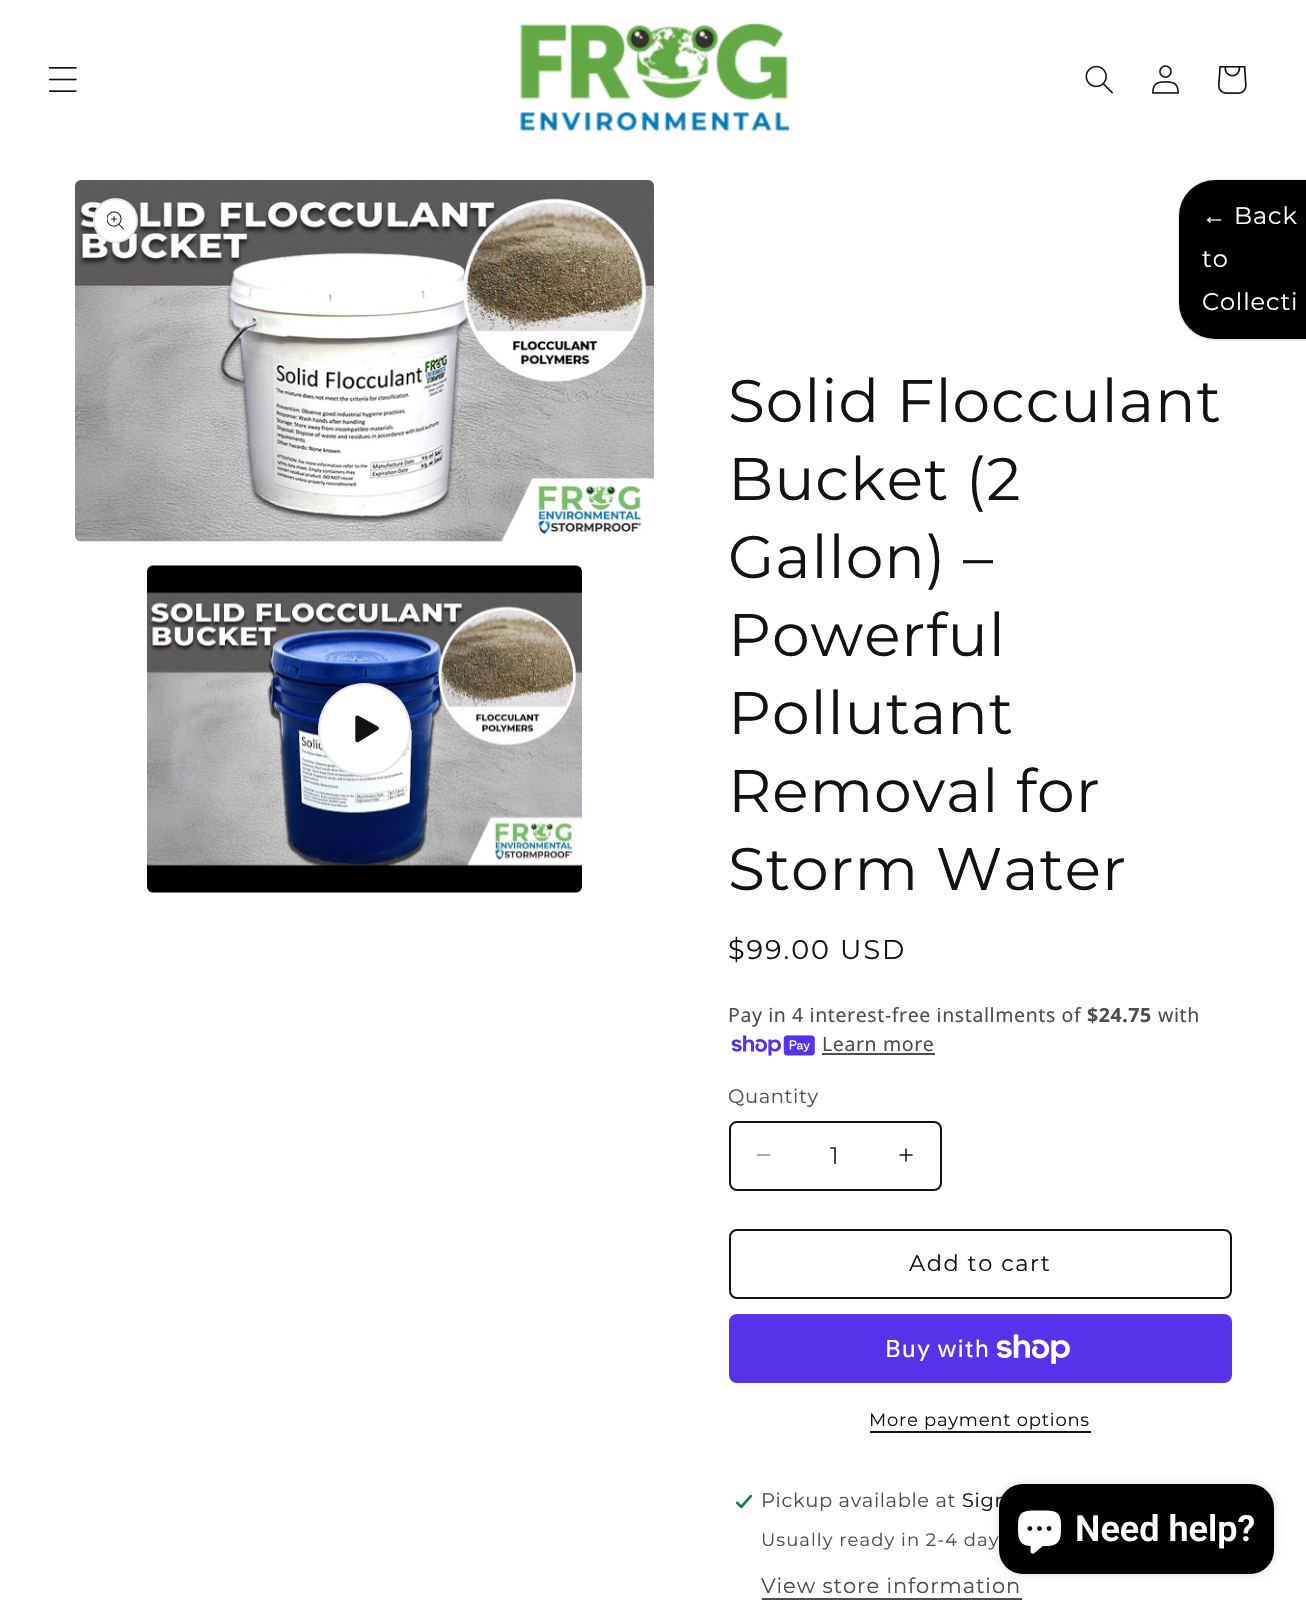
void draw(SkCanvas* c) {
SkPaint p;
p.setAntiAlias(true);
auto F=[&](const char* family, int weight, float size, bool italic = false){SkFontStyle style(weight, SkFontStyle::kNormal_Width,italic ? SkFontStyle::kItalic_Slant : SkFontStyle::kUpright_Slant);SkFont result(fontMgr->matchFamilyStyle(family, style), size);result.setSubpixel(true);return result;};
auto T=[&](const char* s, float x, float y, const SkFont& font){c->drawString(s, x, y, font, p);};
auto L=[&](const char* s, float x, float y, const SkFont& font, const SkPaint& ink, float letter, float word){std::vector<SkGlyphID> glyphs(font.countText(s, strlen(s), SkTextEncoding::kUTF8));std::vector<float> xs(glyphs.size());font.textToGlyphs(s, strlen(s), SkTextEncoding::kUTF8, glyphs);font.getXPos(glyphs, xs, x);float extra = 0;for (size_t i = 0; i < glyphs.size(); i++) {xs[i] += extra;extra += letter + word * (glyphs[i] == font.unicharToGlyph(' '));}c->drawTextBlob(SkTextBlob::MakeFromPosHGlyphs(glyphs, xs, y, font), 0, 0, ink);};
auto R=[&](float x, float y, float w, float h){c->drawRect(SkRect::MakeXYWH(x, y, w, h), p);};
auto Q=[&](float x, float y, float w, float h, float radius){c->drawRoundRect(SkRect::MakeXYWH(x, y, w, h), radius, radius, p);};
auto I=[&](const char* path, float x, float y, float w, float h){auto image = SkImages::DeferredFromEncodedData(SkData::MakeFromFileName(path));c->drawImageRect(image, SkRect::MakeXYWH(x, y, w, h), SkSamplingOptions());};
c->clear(0xffffffff);
I("1.png",48,67,29,25);
I("2.png",520,23,269,108);
I("3.png",1085,65,28,29);
I("4.png",1152,65,27,29);
I("5.png",1218,66,29,28);
I("6.png",75,180,579,362);
p.setColor(0xffffffff);
c->drawCircle(115.5,220.5,22.5,p);
p.setStroke(true);
p.setStrokeWidth(2);
p.setColor(0x1a121212);
c->drawCircle(115.5,220.5,21.5,p);
I("7.png",107,211,17,19);
I("8.png",147,565,435,328);
p.setStroke(false);
p.setColor(0xffffffff);
c->drawCircle(364.5,729.5,46.5,p);
p.setStroke(true);
p.setColor(0x1a121212);
c->drawCircle(364.5,729.5,45.5,p);
I("9.png",355,715,24,28);
p.setColor(0xffe6e6e6);
c->drawRoundRect(SkRect::MakeXYWH(1179,180,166,160),37,37,p);
p.setStroke(false);
p.setColor(0xff000000);
Q(1179,180,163,159,36);
auto f1 = F("Liberation Sans",400,24);
p.setColor(0xffffffff);
L("←",1202,224,f1,p,.9,0);
auto f2 = F("Montserrat",400,24);
L("Back",1234,224,f2,p,.9,0);
L("to",1202,267,f2,p,.9,0);
L("Collecti",1202,310,f2,p,.9,0);
auto f3 = F("Montserrat",400,60);
p.setColor(0xff121212);
L("Solid Flocculant",728,422,f3,p,.9,0);
L("Bucket (2",728,500,f3,p,.9,0);
L("Gallon) –",728,578,f3,p,.9,0);
L("Powerful",728,656,f3,p,.9,0);
L("Pollutant",728,734,f3,p,.9,0);
L("Removal for",728,812,f3,p,.9,0);
L("Storm Water",728,890,f3,p,.9,0);
auto f4 = F("Montserrat",400,27);
L("$99.00 USD",728,959,f4,p,2,0);
auto f5 = F("Noto Sans",400,19.5);
p.setColor(0xff4d4d4d);
L("Pay in 4 interest-free installments of",728,1022,f5,p,.6,0);
auto f6 = F("Noto Sans",700,19.5);
L("$24.75",1087,1022,f6,p,.6,0);
L("with",1158,1022,f5,p,.6,0);
I("10.png",731,1035,84,21);
L("Learn more",822,1051,f5,p,.6,0);
R(822,1053,113,2);
auto f7 = F("Montserrat",400,19.5);
L("Quantity",728,1103,f7,p,.6,0);
I("11.png",756,1154,15,2);
I("12.png",899,1148,14,14);
p.setStroke(true);
p.setColor(0xff121212);
c->drawRoundRect(SkRect::MakeXYWH(730,1122,211,68),7,7,p);
p.setStroke(false);
p.setColor(0xff363636);
T("1",830,1164,f2);
p.setStroke(true);
p.setColor(0xff121212);
c->drawRoundRect(SkRect::MakeXYWH(730,1230,501,68),7,7,p);
auto f8 = F("Montserrat",400,22.5);
p.setStroke(false);
L("Add to cart",909,1271,f8,p,1.5,0);
p.setColor(0xff5433eb);
Q(729,1314,503,69,8);
auto f9 = F("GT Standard",400,24);
p.setColor(0xffffffff);
L("Buy with",885,1357,f9,p,.9,0);
I("13.png",996,1334,74,30);
auto f10 = F("Montserrat",400,18);
p.setColor(0xff121212);
L("More payment options",869,1426,f10,p,.75,0);
R(870,1431,221,2);
I("14.png",735,1494,18,15);
p.setColor(0xff4d4d4d);
L("Pickup available at",761,1507,f7,p,.6,0);
p.setColor(0xff121212);
L("Sign",962,1507,f7,p,.6,0);
p.setColor(0xff4d4d4d);
L("Usually ready in 2-4 day",761,1546,f10,p,1.05,0);
auto f11 = F("Montserrat",400,21);
L("View store information",761,1593,f11,p,.9,0);
R(762,1598,260,2);
p.setColor(0x26000000);
p.setMaskFilter(SkMaskFilter::MakeBlur(kNormal_SkBlurStyle, 4));
c->drawRoundRect(SkRect::MakeXYWH(999,1484,275,90),24,24,p);
p.setMaskFilter(nullptr);
p.setColor(0xff000000);
Q(999,1484,275,90,24);
I("15.png",1017,1510,45,44);
auto f12 = F("Roboto",600,36);
p.setColor(0xffffffff);
T("Need help?",1075,1541,f12);
}
